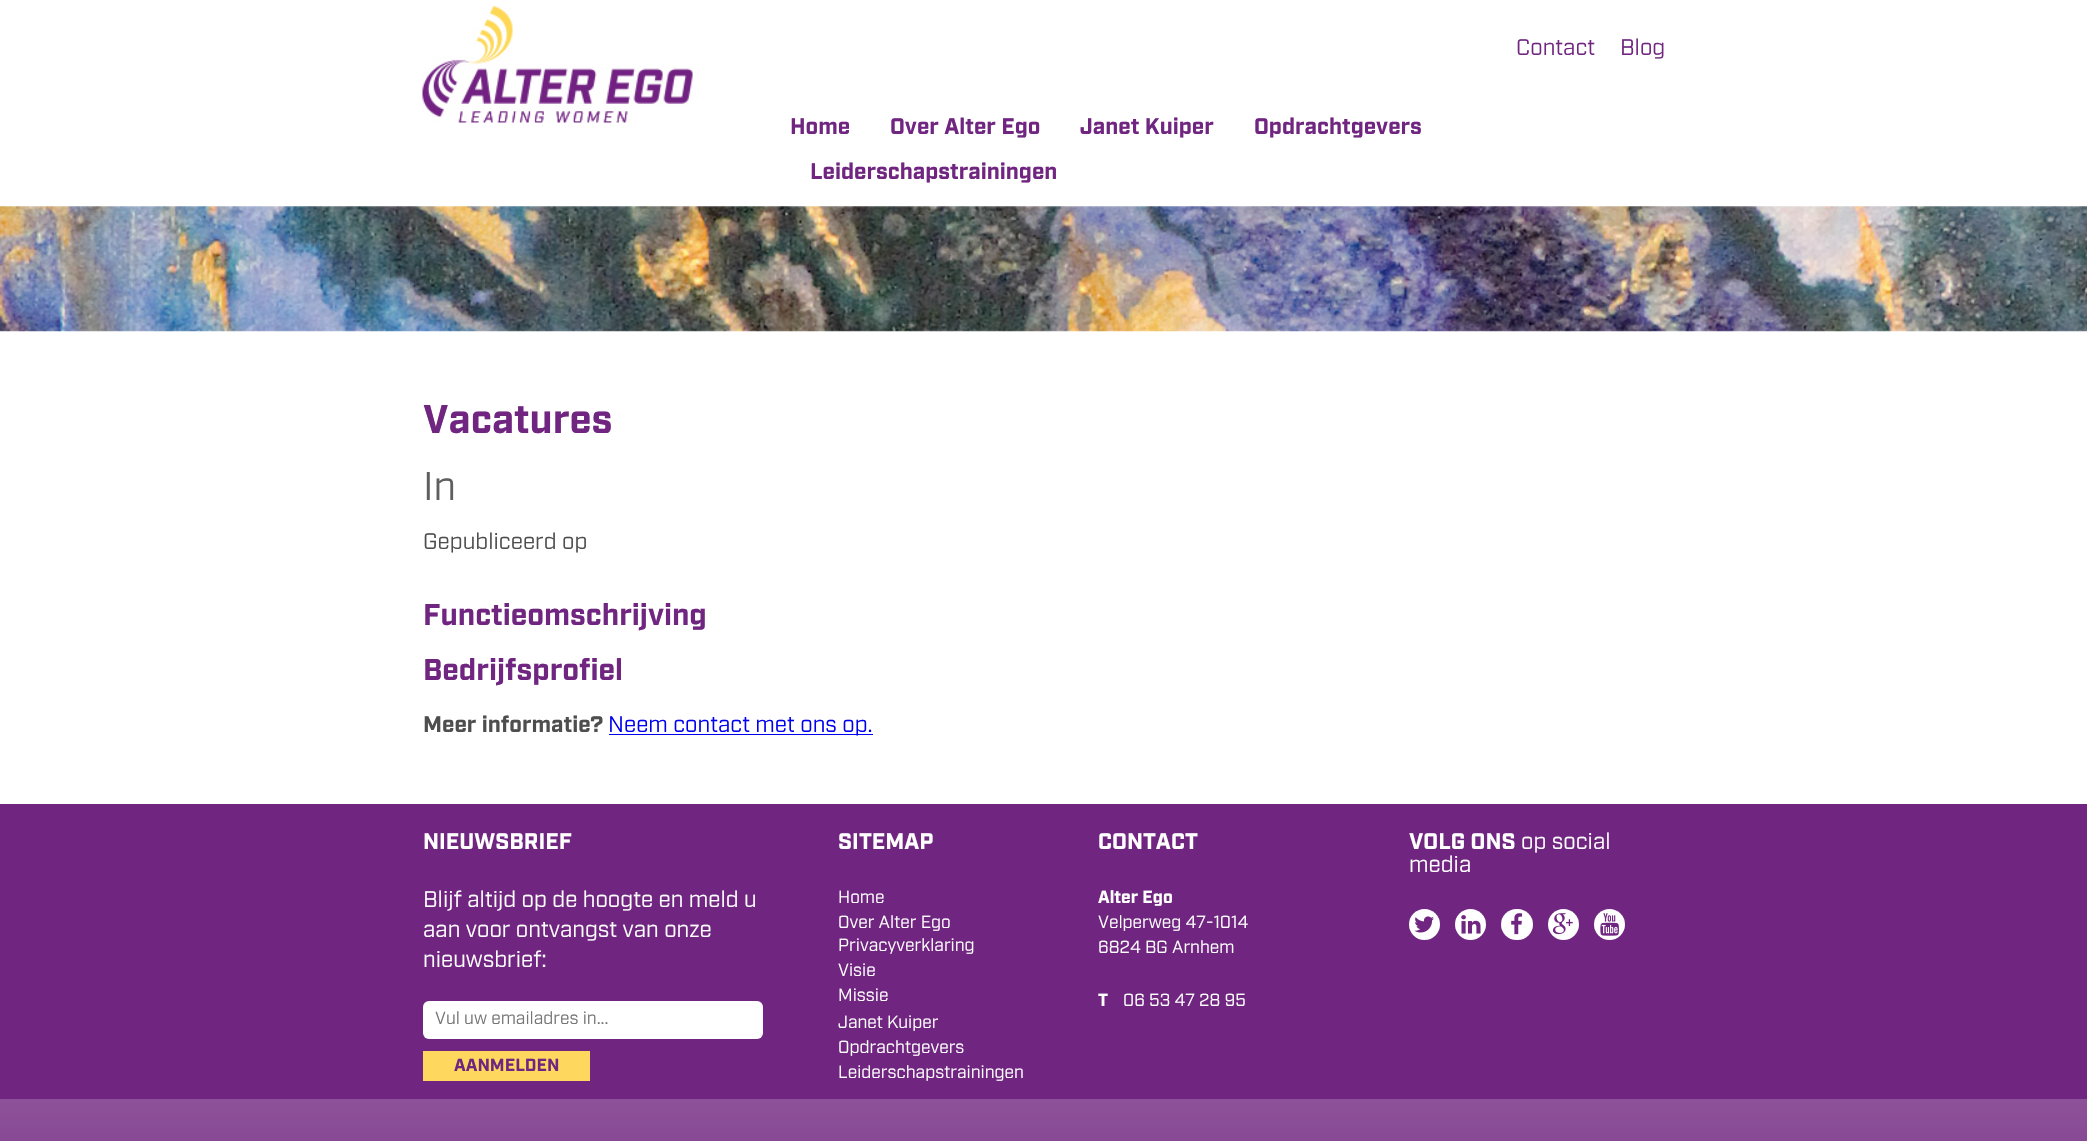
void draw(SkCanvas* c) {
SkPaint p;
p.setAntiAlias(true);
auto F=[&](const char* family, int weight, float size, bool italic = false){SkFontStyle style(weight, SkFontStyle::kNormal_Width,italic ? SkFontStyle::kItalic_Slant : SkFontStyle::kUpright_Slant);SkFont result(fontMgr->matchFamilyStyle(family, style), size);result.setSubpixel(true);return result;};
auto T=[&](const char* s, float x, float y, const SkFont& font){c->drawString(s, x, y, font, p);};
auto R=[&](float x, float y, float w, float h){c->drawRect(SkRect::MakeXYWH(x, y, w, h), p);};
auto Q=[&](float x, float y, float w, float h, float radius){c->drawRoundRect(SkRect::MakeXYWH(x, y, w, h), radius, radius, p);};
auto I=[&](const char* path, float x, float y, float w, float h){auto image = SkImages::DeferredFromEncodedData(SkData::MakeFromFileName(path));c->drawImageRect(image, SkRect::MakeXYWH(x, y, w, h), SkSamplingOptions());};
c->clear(0xffffffff);
I("1.png",422,6,271,117);
auto f1 = F("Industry",400,22.5);
p.setColor(0xff702680);
T("Contact",1516,55,f1);
T("Blog",1620,55,f1);
auto f2 = F("Industry",700,22.5);
T("Home",790,134,f2);
T("Over Alter Ego",890,134,f2);
T("Janet Kuiper",1080,134,f2);
T("Opdrachtgevers",1254,134,f2);
T("Leiderschapstrainingen",810,179,f2);
I("2.png",0,206,2087,126);
auto f3 = F("Industry",700,40);
T("Vacatures",423,433,f3);
auto f4 = F("Industry",400,40);
p.setColor(0xff5f5f5f);
T("In",423,500,f4);
p.setColor(0xff4e4e4e);
T("Gepubliceerd op",423,549,f1);
auto f5 = F("Industry",700,30);
p.setColor(0xff702680);
T("Functieomschrijving",423,625,f5);
T("Bedrijfsprofiel",423,680,f5);
p.setColor(0xff4e4e4e);
T("Meer informatie?",423,732,f2);
p.setColor(0xff0000ee);
R(609,734,264,1);
T("Neem contact met ons op.",608,732,f1);
p.setColor(0xff702680);
R(0,804,2087,295);
p.setColor(0xffffffff);
T("NIEUWSBRIEF",423,849,f2);
T("Blijf altijd op de hoogte en meld u",423,907,f1);
T("aan voor ontvangst van onze",423,937,f1);
T("nieuwsbrief:",423,967,f1);
Q(423,1001,340,38,6);
auto f6 = F("Industry",400,17.5);
p.setColor(0xff757575);
T("Vul uw emailadres in...",435,1024,f6);
p.setColor(0xfffed75f);
R(423,1051,167,30);
auto f7 = F("Industry",700,17.5);
p.setColor(0xff702680);
T("AANMELDEN",454,1071,f7);
p.setColor(0xffffffff);
T("SITEMAP",838,849,f2);
T("Home",838,903,f6);
T("Over Alter Ego",838,928,f6);
T("Privacyverklaring",838,951,f6);
T("Visie",838,976,f6);
T("Missie",838,1001,f6);
T("Janet Kuiper",838,1028,f6);
T("Opdrachtgevers",838,1053,f6);
T("Leiderschapstrainingen",838,1078,f6);
T("CONTACT",1098,849,f2);
T("Alter Ego",1098,903,f7);
T("Velperweg 47-1014",1098,928,f6);
T("6824 BG Arnhem",1098,953,f6);
T("T",1098,1006,f7);
T("06 53 47 28 95",1123,1006,f6);
T("VOLG ONS",1409,849,f2);
T("op social",1521,849,f1);
T("media",1409,872,f1);
c->drawCircle(1424.5,924.5,15.5,p);
I("3.png",1414,916,20,17);
c->drawCircle(1470.5,924.5,15.5,p);
I("4.png",1461,915,20,19);
Q(1501,909,32,31,15.5);
I("5.png",1511,913,12,22);
c->drawCircle(1563.5,924.5,15.5,p);
I("6.png",1552,913,21,22);
c->drawCircle(1609.5,924.5,15.5,p);
I("7.png",1600,913,19,23);
{
const SkColor colors[] = {0xff8d5199,0xff854592,0xff712780};
const float stops[] = {0,.5,1};
const SkPoint ends[] = {{1044,1099}, {1044,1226}};
p.setShader(SkGradientShader::MakeLinear(ends, colors, stops, 3, SkTileMode::kClamp));
p.setAlpha(255);
}
R(0,1099,2087,42);
}
